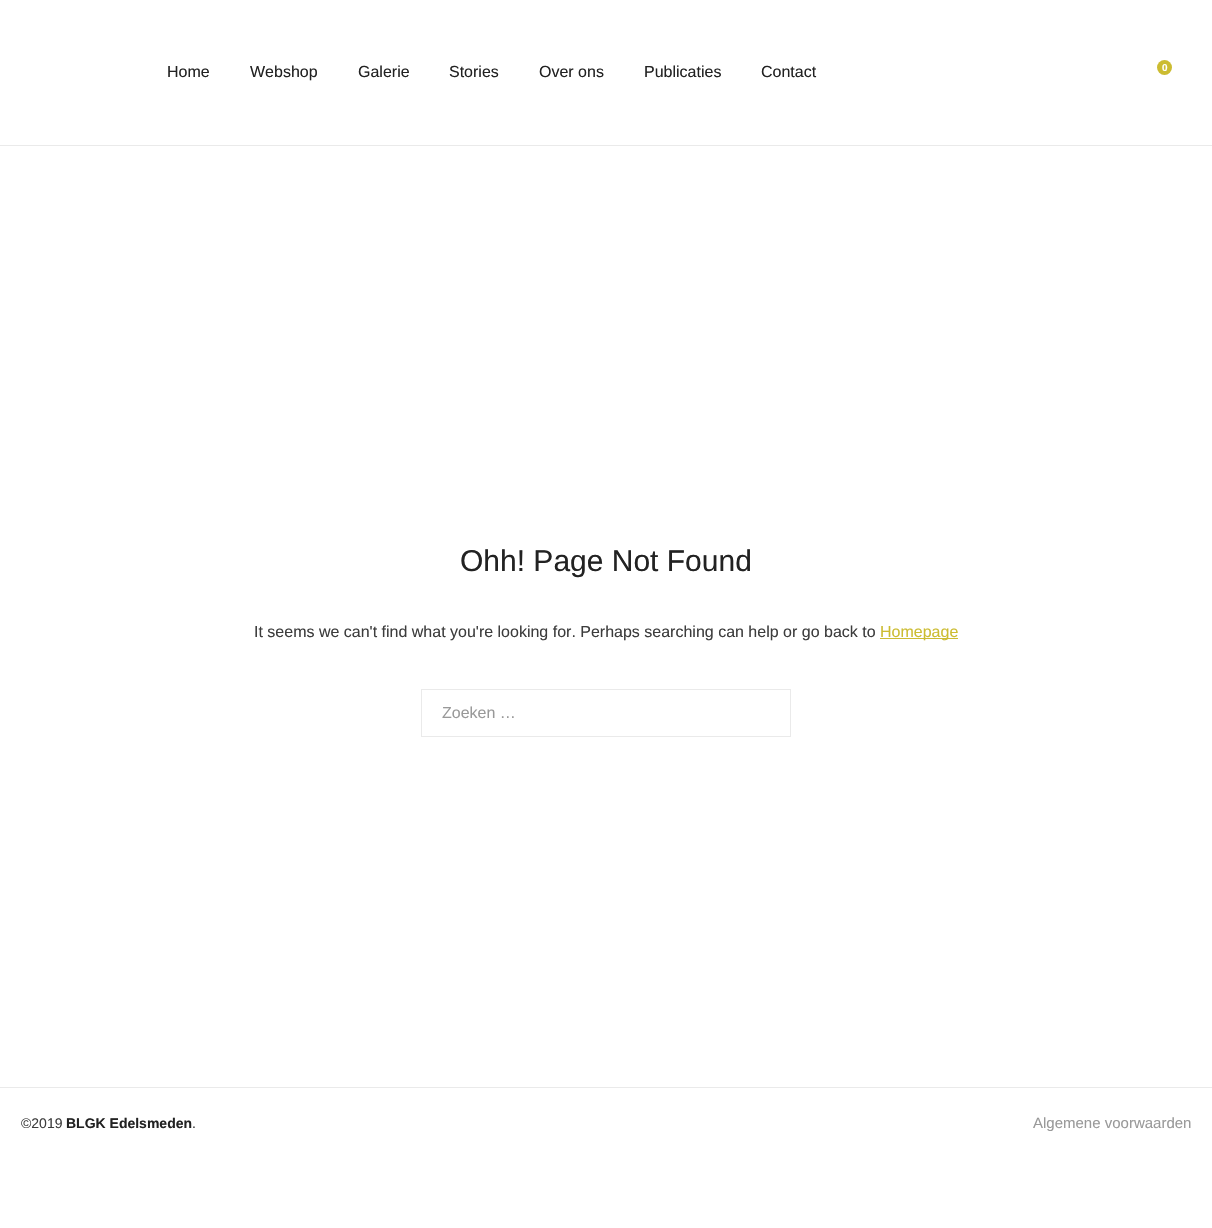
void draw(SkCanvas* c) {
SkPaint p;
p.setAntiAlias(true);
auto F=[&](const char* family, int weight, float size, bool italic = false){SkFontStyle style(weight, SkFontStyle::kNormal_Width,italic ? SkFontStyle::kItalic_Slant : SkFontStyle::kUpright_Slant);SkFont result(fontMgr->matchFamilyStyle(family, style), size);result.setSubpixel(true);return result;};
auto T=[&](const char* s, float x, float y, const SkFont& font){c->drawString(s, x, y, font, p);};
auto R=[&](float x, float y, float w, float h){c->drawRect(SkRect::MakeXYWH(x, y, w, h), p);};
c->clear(0xffffffff);
p.setColor(0xffeaeaea);
R(0,145,1212,1);
auto f1 = F("Liberation Sans",400,16);
p.setColor(0xff222222);
T("Home",167,77,f1);
T("Webshop",250,77,f1);
T("Galerie",358,77,f1);
T("Stories",449,77,f1);
T("Over ons",539,77,f1);
T("Publicaties",644,77,f1);
T("Contact",761,77,f1);
p.setColor(0xffccbc31);
c->drawCircle(1164.5,67.5,7.5,p);
auto f2 = F("Liberation Sans",700,10);
p.setColor(0xffffffff);
T("0",1162,71,f2);
auto f3 = F("Liberation Sans",400,30);
p.setColor(0xff222222);
T("Ohh! Page Not Found",460,571,f3);
p.setColor(0xff3d3d3d);
T("It seems we can't find what you're looking for. Perhaps searching can help or go back to",254,637,f1);
p.setColor(0xffccbc31);
R(880,638,78,1);
T("Homepage",880,637,f1);
p.setStroke(true);
p.setStrokeWidth(1);
p.setColor(0xffeaeaea);
c->drawRect(SkRect::MakeXYWH(421.5,689.5,369,47),p);
p.setStroke(false);
p.setColor(0xff999999);
T("Zoeken …",442,718,f1);
p.setColor(0xffeaeaea);
R(0,1087,1212,1);
auto f4 = F("Liberation Sans",400,14);
p.setColor(0xff3d3d3d);
T("©2019",21,1128,f4);
auto f5 = F("Liberation Sans",700,14);
p.setColor(0xff222222);
T("BLGK Edelsmeden",66,1128,f5);
p.setColor(0xff3d3d3d);
T(".",192,1128,f4);
auto f6 = F("Liberation Sans",400,15);
p.setColor(0xff999999);
T("Algemene voorwaarden",1033,1128,f6);
}
